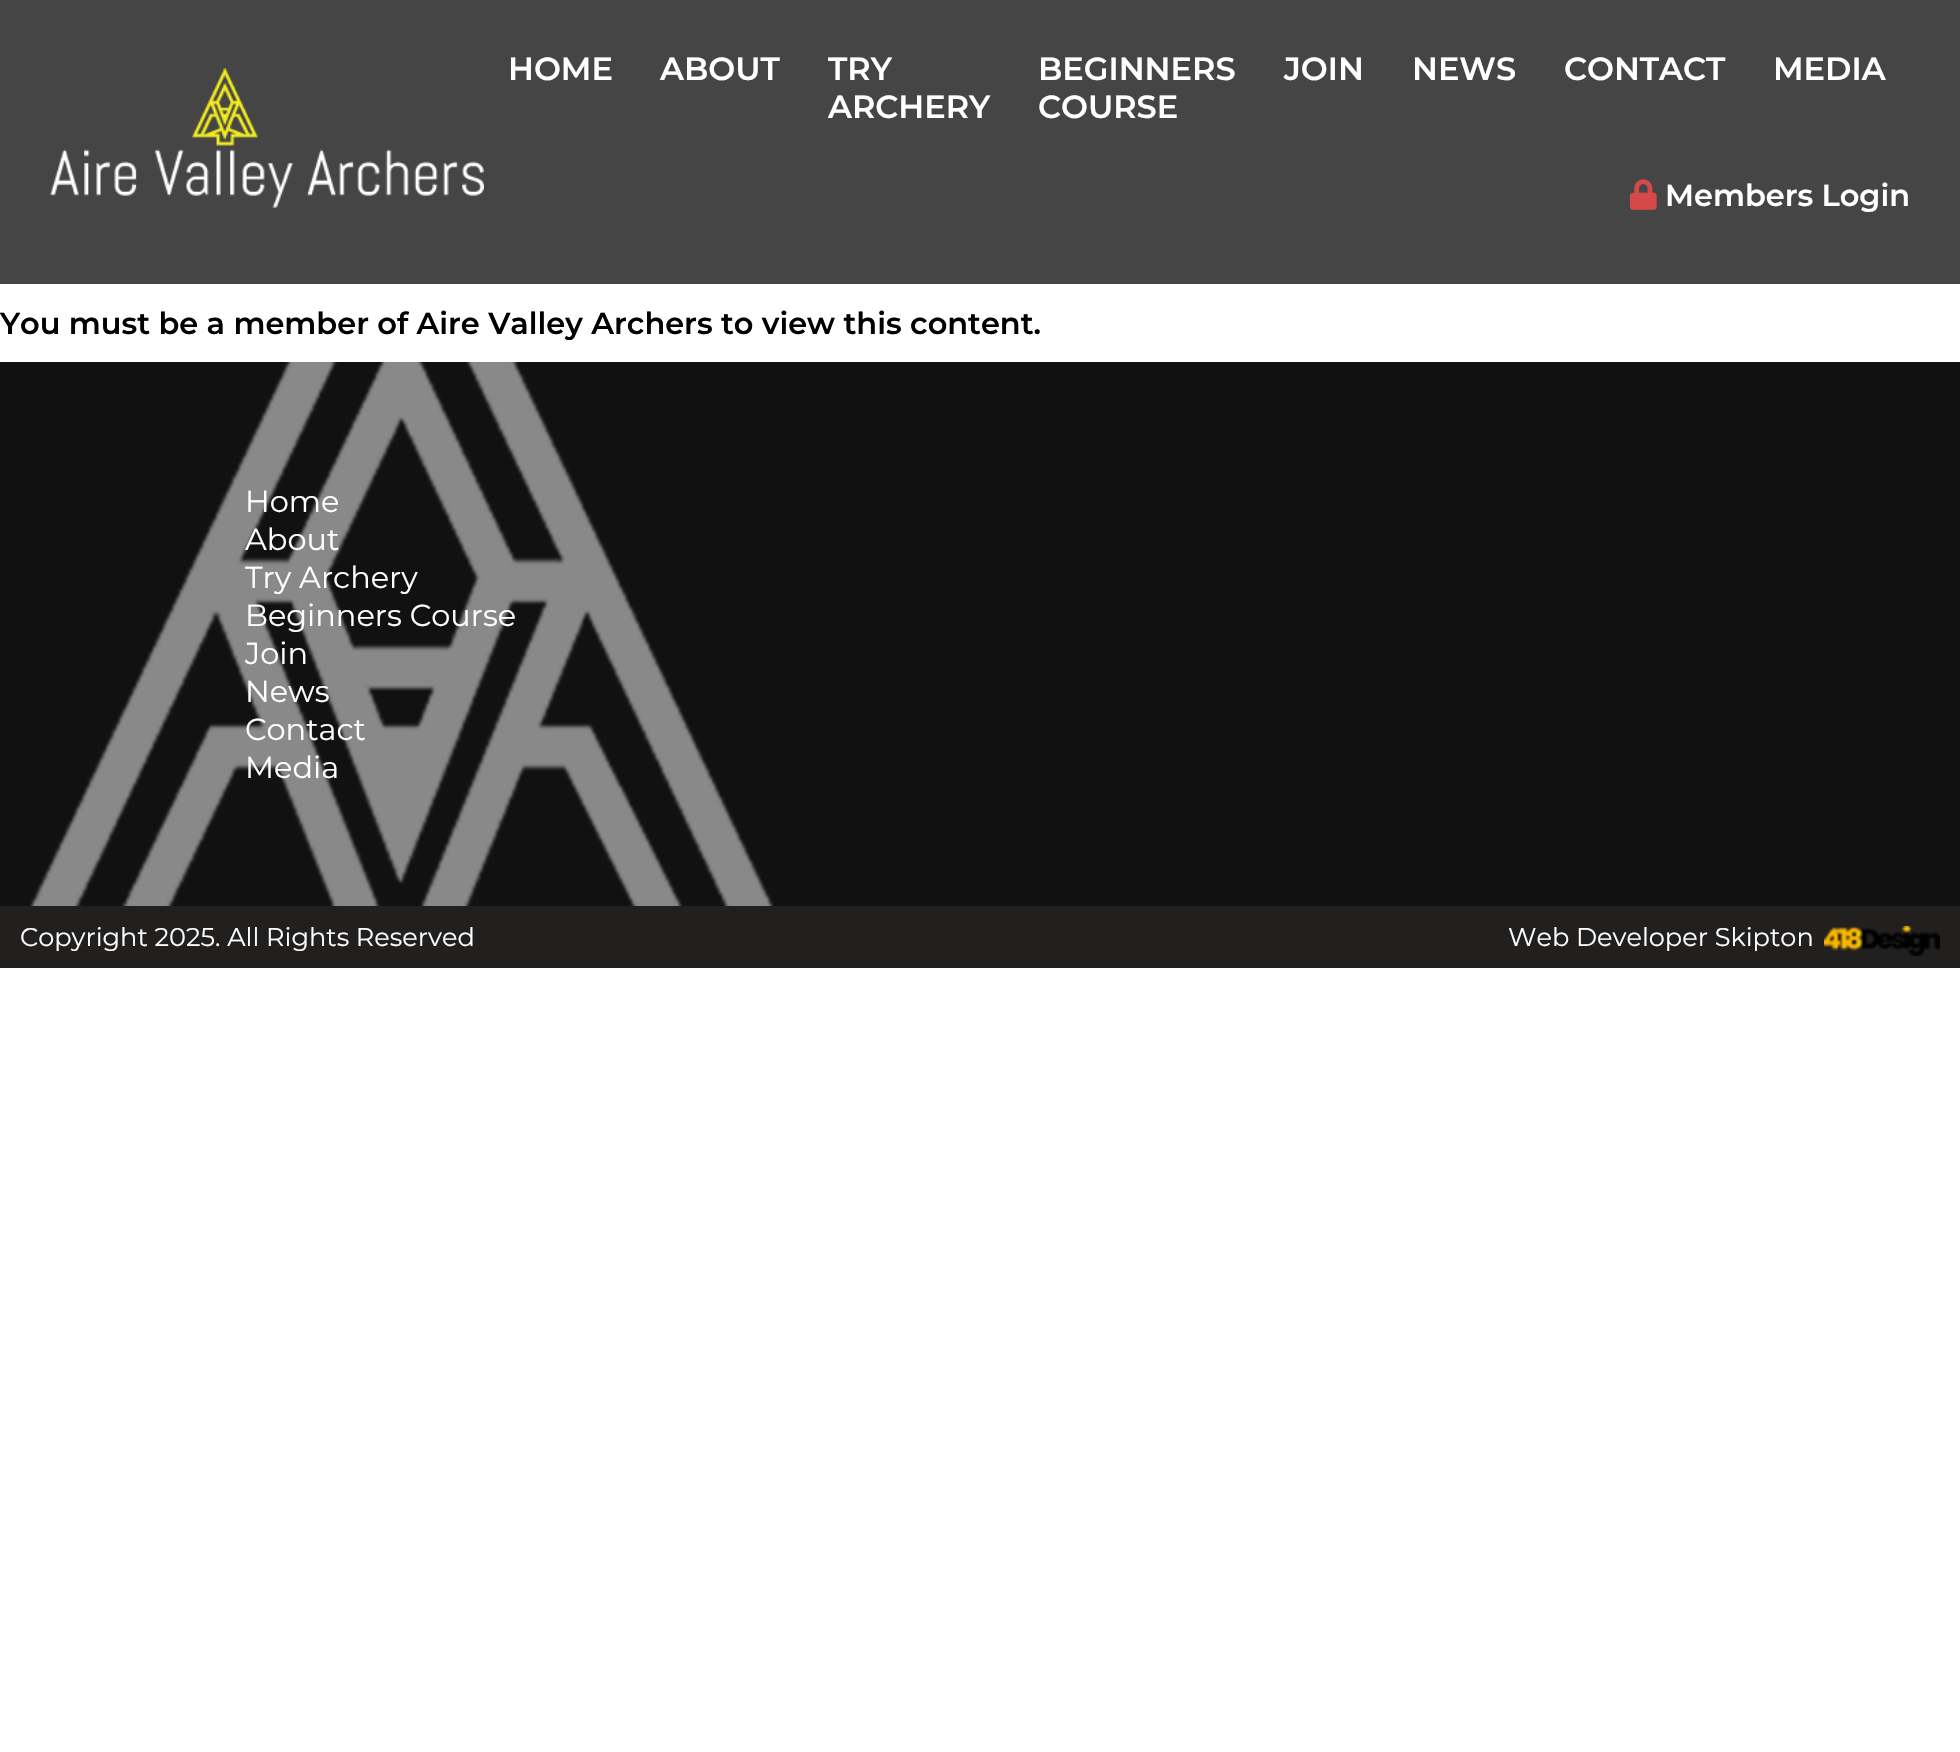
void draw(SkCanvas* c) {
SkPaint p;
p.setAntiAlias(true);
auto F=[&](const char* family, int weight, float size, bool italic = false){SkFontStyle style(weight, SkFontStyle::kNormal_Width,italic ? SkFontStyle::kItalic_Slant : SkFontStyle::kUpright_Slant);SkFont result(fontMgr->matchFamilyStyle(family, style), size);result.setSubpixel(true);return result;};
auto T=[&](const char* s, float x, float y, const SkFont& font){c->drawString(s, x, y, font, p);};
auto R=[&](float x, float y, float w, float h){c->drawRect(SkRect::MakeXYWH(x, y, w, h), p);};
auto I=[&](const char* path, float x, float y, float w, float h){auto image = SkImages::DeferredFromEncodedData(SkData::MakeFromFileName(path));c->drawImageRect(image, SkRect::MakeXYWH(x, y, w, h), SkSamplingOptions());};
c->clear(0xffffffff);
p.setColor(0xff454545);
R(0,0,1960,284);
I("1.png",50,68,434,140);
auto f1 = F("Montserrat",600,32);
p.setColor(0xffffffff);
T("HOME",508,80,f1);
T("ABOUT",660,80,f1);
T("TRY",828,80,f1);
T("ARCHERY",828,118,f1);
T("BEGINNERS",1038,80,f1);
T("COURSE",1038,118,f1);
T("JOIN",1284,80,f1);
T("NEWS",1412,80,f1);
T("CONTACT",1564,80,f1);
T("MEDIA",1773,80,f1);
I("2.png",1630,179,27,31);
auto f2 = F("Montserrat",600,30.4);
T("Members Login",1665,206,f2);
p.setColor(0xff000000);
T("You must be a member of Aire Valley Archers to view this content.",0,334,f2);
p.setColor(0xff111111);
R(0,362,1960,544);
I("3.png",29,362,745,544);
auto f3 = F("Montserrat",400,30.4);
p.setColor(0xffffffff);
T("Home",245,512,f3);
T("About",245,550,f3);
T("Try Archery",245,588,f3);
T("Beginners Course",245,626,f3);
T("Join",245,664,f3);
T("News",245,702,f3);
T("Contact",245,740,f3);
T("Media",245,778,f3);
p.setColor(0xff221f1f);
R(0,906,1960,62);
auto f4 = F("Montserrat",400,25.6);
p.setColor(0xffffffff);
T("Copyright 2025. All Rights Reserved",20,946,f4);
T("Web Developer Skipton",1508,946,f4);
I("4.png",1824,926,116,30);
}
